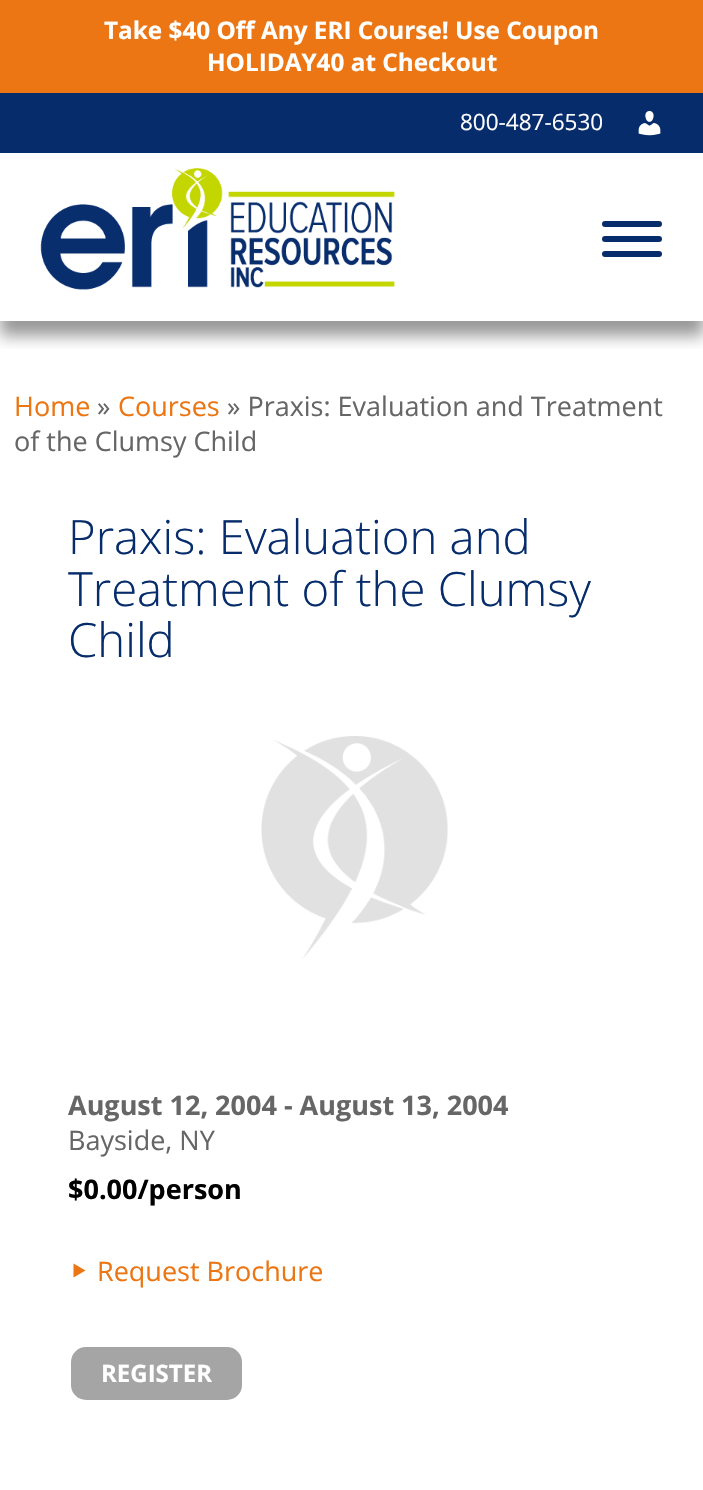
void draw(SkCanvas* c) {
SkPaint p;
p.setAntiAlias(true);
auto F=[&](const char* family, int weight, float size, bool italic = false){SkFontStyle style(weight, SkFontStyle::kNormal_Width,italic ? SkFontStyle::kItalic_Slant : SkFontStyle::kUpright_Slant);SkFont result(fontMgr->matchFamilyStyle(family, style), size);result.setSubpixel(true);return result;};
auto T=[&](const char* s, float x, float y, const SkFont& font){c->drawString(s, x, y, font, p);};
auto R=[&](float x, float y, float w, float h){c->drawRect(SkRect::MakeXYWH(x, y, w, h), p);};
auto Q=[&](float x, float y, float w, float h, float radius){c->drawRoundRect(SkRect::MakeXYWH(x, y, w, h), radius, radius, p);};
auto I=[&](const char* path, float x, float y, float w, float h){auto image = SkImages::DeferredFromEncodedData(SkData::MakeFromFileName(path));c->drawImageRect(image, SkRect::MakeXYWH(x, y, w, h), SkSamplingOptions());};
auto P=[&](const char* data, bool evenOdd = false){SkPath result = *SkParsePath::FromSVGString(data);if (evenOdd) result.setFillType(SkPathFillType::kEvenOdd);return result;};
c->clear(0xffffffff);
p.setColor(0xffeb7613);
R(0,0,703,93);
auto f1 = F("Open Sans",700,24.3);
p.setColor(0xffffffff);
T("Take $40 Off Any ERI Course! Use Coupon",104,39,f1);
T("HOLIDAY40 at Checkout",207,71,f1);
p.setColor(0xff062c6b);
R(0,93,703,60);
auto f2 = F("Open Sans",400,22.5);
p.setColor(0xffffffff);
T("800-487-6530",460,130,f2);
I("1.png",638,111,23,25);
c->save();
c->clipRect(SkRect::MakeXYWH(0,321,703,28));
p.setColor(0x80323232);
p.setMaskFilter(SkMaskFilter::MakeBlur(kNormal_SkBlurStyle, 7.5));
c->drawRect(SkRect::MakeXYWH(0,168,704,168),p);
p.setMaskFilter(nullptr);
c->restore();
I("2.png",40,168,355,122);
p.setColor(0xff062c6b);
Q(602,221,60,6,3);
Q(602,236,60,6,3);
Q(602,251,60,6,3);
auto f3 = F("Open Sans",400,27);
p.setColor(0xffeb7613);
T("Home",14,416,f3);
p.setColor(0xff666666);
T("»",97,416,f3);
p.setColor(0xffeb7613);
T("Courses",118,416,f3);
p.setColor(0xff666666);
T("» Praxis: Evaluation and Treatment",227,416,f3);
T("of the Clumsy Child",14,451,f3);
auto f4 = F("Open Sans",300,47.25);
p.setColor(0xff062c6b);
T("Praxis: Evaluation and",68,554,f4);
T("Treatment of the Clumsy",68,606,f4);
T("Child",68,657,f4);
I("3.png",261,736,187,223);
auto f5 = F("Open Sans",700,27);
p.setColor(0xff666666);
T("August 12, 2004 - August 13, 2004",68,1115,f5);
T("Bayside, NY",68,1150,f3);
p.setColor(0xff000000);
T("$0.00/person",68,1199,f5);
p.setColor(0xffeb7613);
c->drawPath(P("M73.5 1263.5l12 7l-12 7z"),p);
T("Request Brochure",97,1281,f3);
p.setColor(0xffa5a5a5);
Q(71,1347,171,53,15);
auto f6 = F("Open Sans",700,24);
p.setColor(0xffffffff);
T("REGISTER",101,1382,f6);
}
